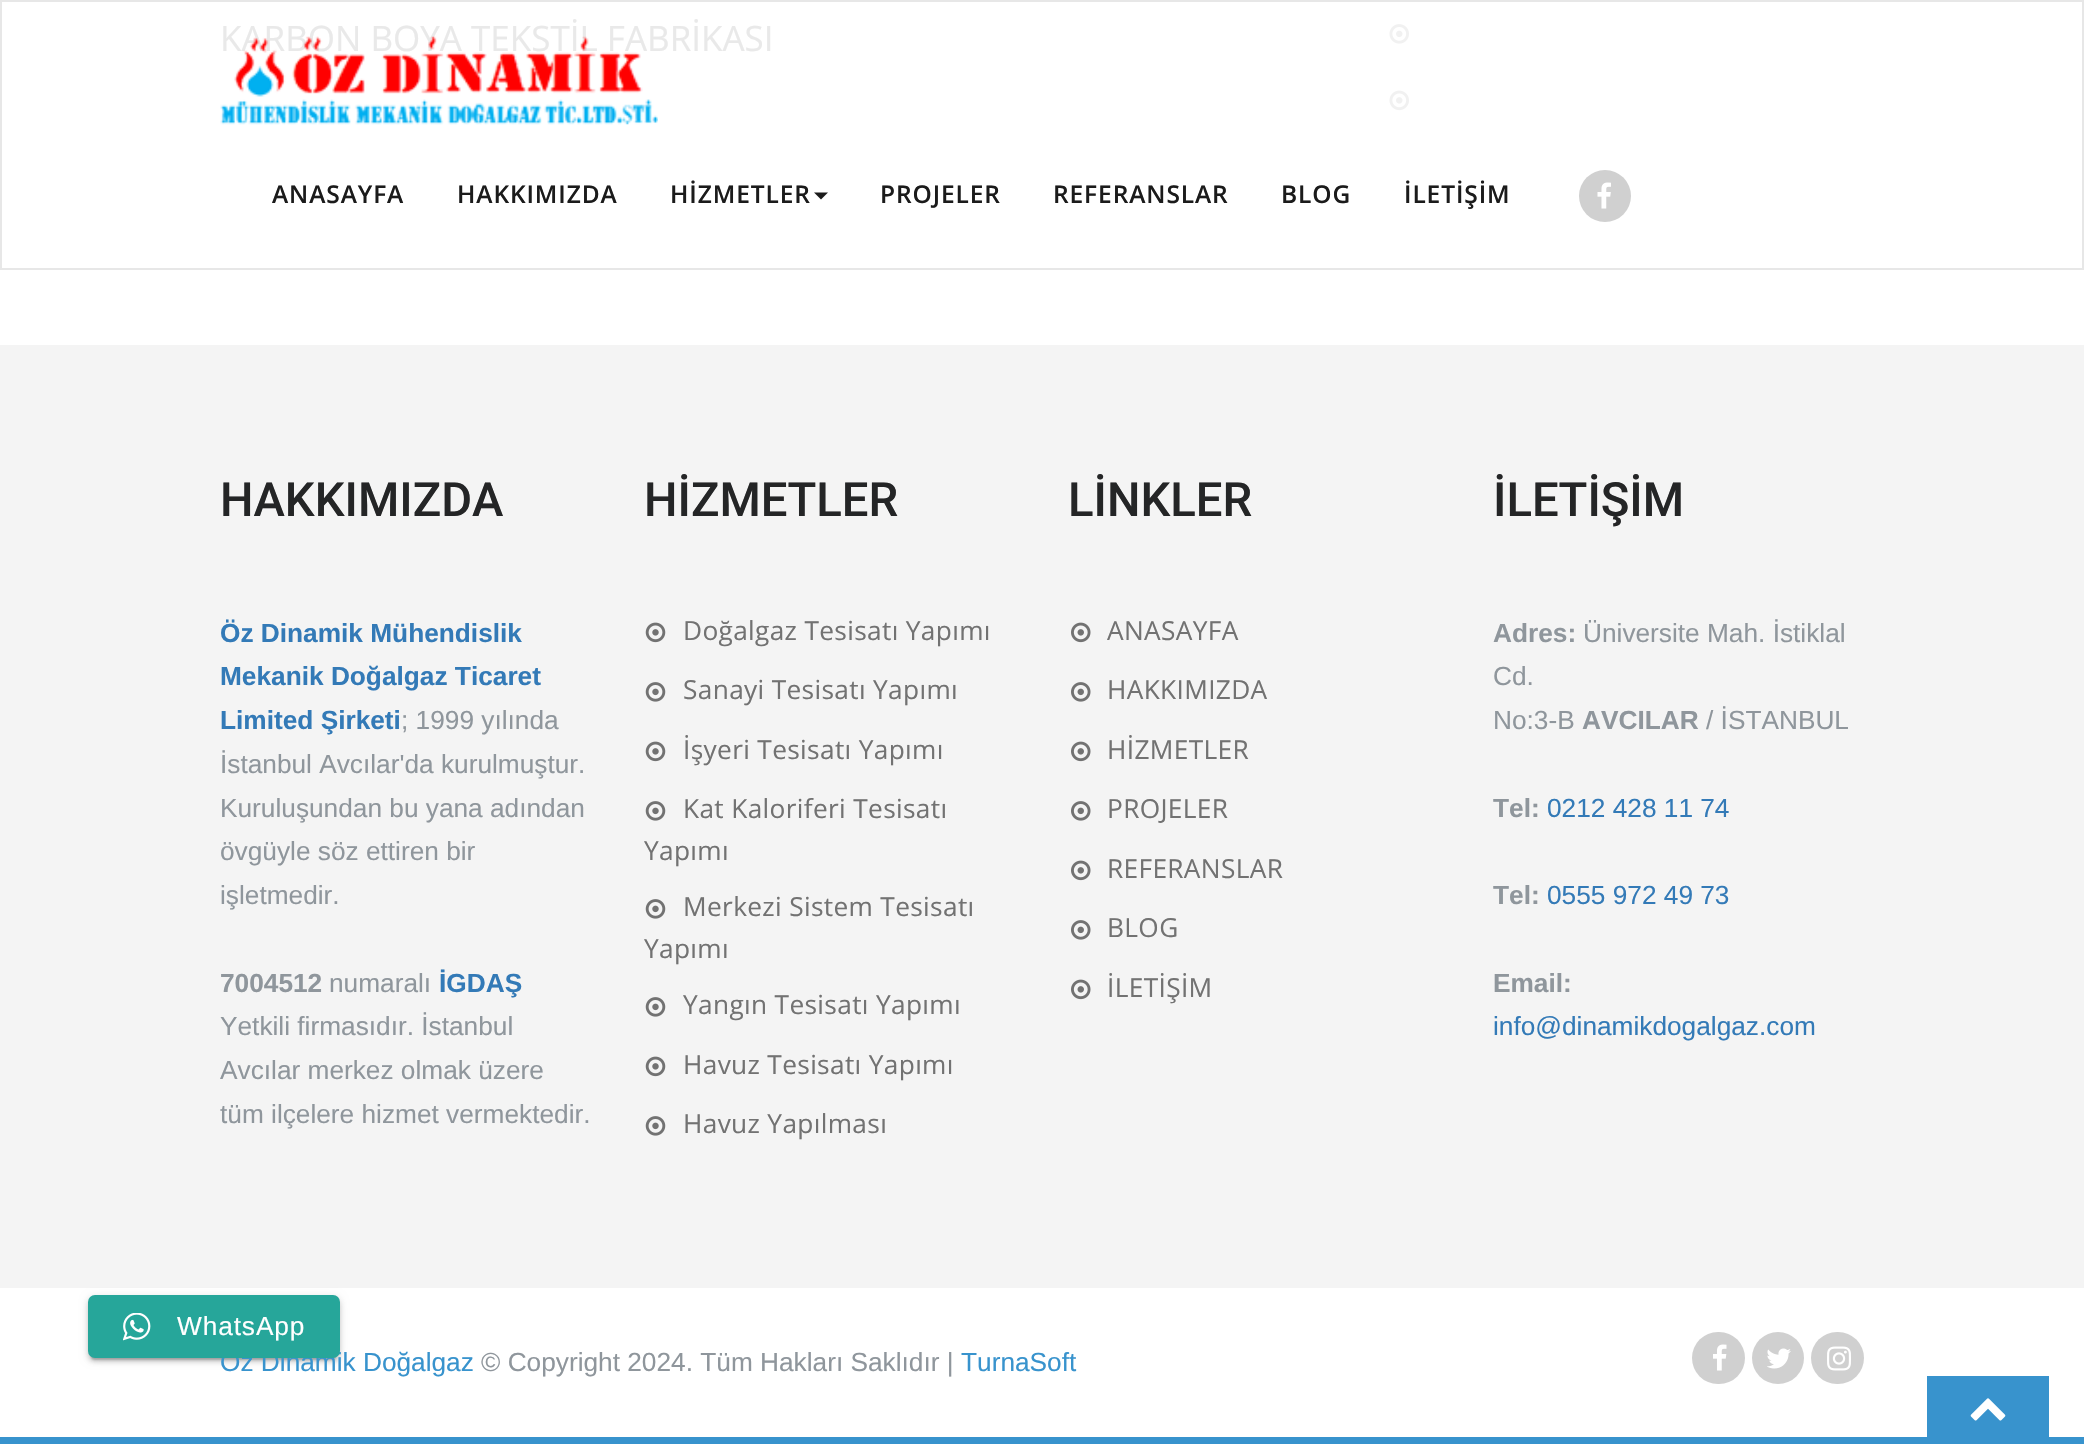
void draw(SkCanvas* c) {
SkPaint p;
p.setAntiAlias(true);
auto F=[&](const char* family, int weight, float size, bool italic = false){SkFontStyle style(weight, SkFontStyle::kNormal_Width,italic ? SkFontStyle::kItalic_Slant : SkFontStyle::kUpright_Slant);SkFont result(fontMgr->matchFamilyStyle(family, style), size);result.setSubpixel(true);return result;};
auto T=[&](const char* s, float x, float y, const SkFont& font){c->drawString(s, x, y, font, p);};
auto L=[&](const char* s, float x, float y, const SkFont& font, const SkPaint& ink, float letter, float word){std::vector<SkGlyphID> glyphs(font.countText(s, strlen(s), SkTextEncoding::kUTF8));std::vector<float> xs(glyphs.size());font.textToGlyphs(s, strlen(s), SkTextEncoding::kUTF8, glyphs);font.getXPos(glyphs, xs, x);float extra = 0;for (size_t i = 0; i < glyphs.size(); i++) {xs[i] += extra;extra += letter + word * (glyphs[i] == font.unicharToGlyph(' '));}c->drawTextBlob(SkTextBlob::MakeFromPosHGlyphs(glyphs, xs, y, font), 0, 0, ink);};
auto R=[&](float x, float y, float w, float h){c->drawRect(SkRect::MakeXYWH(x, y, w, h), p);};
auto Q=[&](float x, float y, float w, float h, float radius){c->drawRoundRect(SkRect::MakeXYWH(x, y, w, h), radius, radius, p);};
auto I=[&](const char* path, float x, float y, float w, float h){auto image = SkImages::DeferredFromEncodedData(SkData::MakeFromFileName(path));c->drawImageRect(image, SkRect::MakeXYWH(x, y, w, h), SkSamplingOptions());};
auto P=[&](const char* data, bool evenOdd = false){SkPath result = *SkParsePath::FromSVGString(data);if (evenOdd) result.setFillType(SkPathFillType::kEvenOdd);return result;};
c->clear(0xffffffff);
auto f1 = F("Open Sans",400,35);
p.setColor(0xffe9e9e9);
T("KARBON BOYA TEKSTİL FABRİKASI",220,51,f1);
I("1.png",1389,24,20,20);
I("2.png",1389,90,20,21);
p.setStroke(true);
p.setStrokeWidth(2);
p.setColor(0xffe7e7e7);
c->drawRect(SkRect::MakeXYWH(1,1,2082,268),p);
I("3.png",220,36,438,89);
auto f2 = F("Open Sans",600,24.5);
p.setStroke(false);
p.setColor(0xff1b1b1b);
L("ANASAYFA",272,203,f2,p,.9,0);
L("HAKKIMIZDA",457,203,f2,p,.9,0);
L("HİZMETLER",670,203,f2,p,.9,0);
c->drawPath(P("M814 192.5h14l-7 7z"),p);
L("PROJELER",880,203,f2,p,.9,0);
L("REFERANSLAR",1053,203,f2,p,.9,0);
L("BLOG",1281,203,f2,p,.9,0);
L("İLETİŞİM",1404,203,f2,p,.9,0);
p.setColor(0xffd0d0d0);
c->drawCircle(1605,196,26,p);
I("4.png",1597,182,14,27);
p.setColor(0xfff4f4f4);
R(0,345,2084,943);
auto f3 = F("Roboto",500,47.25);
p.setColor(0xff242526);
T("HAKKIMIZDA",220,516,f3);
auto f4 = F("Liberation Sans",700,26.25);
p.setColor(0xff337ab7);
T("Öz Dinamik Mühendislik",220,642,f4);
T("Mekanik Doğalgaz Ticaret",220,685,f4);
T("Limited Şirketi",220,729,f4);
auto f5 = F("Liberation Sans",400,26.25);
p.setColor(0xff8f969c);
T("; 1999 yılında",401,729,f5);
T("İstanbul Avcılar'da kurulmuştur.",220,773,f5);
T("Kuruluşundan bu yana adından",220,817,f5);
T("övgüyle söz ettiren bir",220,860,f5);
T("işletmedir.",220,904,f5);
T("7004512",220,992,f4);
T("numaralı",329,992,f5);
p.setColor(0xff337ab7);
T("İGDAŞ",439,992,f4);
p.setColor(0xff8f969c);
T("Yetkili firmasıdır. İstanbul",220,1035,f5);
T("Avcılar merkez olmak üzere",220,1079,f5);
T("tüm ilçelere hizmet vermektedir.",220,1123,f5);
p.setColor(0xff242526);
T("HİZMETLER",644,516,f3);
I("5.png",645,622,21,21);
auto f6 = F("Open Sans",400,26.25);
p.setColor(0xff727272);
L("Doğalgaz Tesisatı Yapımı",683,640,f6,p,.35,0);
I("6.png",645,682,21,20);
L("Sanayi Tesisatı Yapımı",683,699,f6,p,.35,0);
I("5.png",645,741,21,21);
L("İşyeri Tesisatı Yapımı",683,759,f6,p,.35,0);
I("6.png",645,801,21,20);
L("Kat Kaloriferi Tesisatı",683,818,f6,p,.35,0);
L("Yapımı",644,860,f6,p,.35,0);
I("6.png",645,899,21,20);
L("Merkezi Sistem Tesisatı",683,916,f6,p,.35,0);
L("Yapımı",644,958,f6,p,.35,0);
I("6.png",645,997,21,20);
L("Yangın Tesisatı Yapımı",683,1014,f6,p,.35,0);
I("5.png",645,1056,21,21);
L("Havuz Tesisatı Yapımı",683,1074,f6,p,.35,0);
I("6.png",645,1116,21,20);
L("Havuz Yapılması",683,1133,f6,p,.35,0);
p.setColor(0xff242526);
T("LİNKLER",1068,516,f3);
I("7.png",1071,622,20,21);
p.setColor(0xff727272);
L("ANASAYFA",1107,640,f6,p,.35,0);
I("8.png",1071,682,20,20);
L("HAKKIMIZDA",1107,699,f6,p,.35,0);
I("7.png",1071,741,20,21);
L("HİZMETLER",1107,759,f6,p,.35,0);
I("8.png",1071,801,20,20);
L("PROJELER",1107,818,f6,p,.35,0);
I("7.png",1071,860,20,21);
L("REFERANSLAR",1107,878,f6,p,.35,0);
I("8.png",1071,920,20,20);
L("BLOG",1107,937,f6,p,.35,0);
I("7.png",1071,979,20,21);
L("İLETİŞİM",1107,997,f6,p,.35,0);
p.setColor(0xff242526);
T("İLETİŞİM",1493,516,f3);
p.setColor(0xff8f969c);
T("Adres:",1493,642,f4);
T("Üniversite Mah. İstiklal",1583,642,f5);
T("Cd.",1493,685,f5);
T("No:3-B",1493,729,f5);
T("AVCILAR",1582,729,f4);
T("/ İSTANBUL",1706,729,f5);
T("Tel:",1493,817,f4);
p.setColor(0xff337ab7);
T("0212 428 11 74",1547,817,f5);
p.setColor(0xff8f969c);
T("Tel:",1493,904,f4);
p.setColor(0xff337ab7);
T("0555 972 49 73",1547,904,f5);
p.setColor(0xff8f969c);
T("Email:",1493,992,f4);
p.setColor(0xff337ab7);
T("info@dinamikdogalgaz.com",1493,1035,f5);
p.setColor(0x33000000);
p.setMaskFilter(SkMaskFilter::MakeBlur(kNormal_SkBlurStyle, 1));
c->drawRoundRect(SkRect::MakeXYWH(91,1304,245,56),4,4,p);
p.setMaskFilter(nullptr);
p.setColor(0x1f000000);
p.setMaskFilter(SkMaskFilter::MakeBlur(kNormal_SkBlurStyle, 4.5));
c->drawRoundRect(SkRect::MakeXYWH(88,1297,252,63),7,7,p);
p.setMaskFilter(nullptr);
p.setColor(0x24000000);
p.setMaskFilter(SkMaskFilter::MakeBlur(kNormal_SkBlurStyle, 2));
c->drawRoundRect(SkRect::MakeXYWH(88,1299,252,63),7,7,p);
p.setMaskFilter(nullptr);
p.setColor(0xff3893cd);
T("Öz Dinamik Doğalgaz",220,1371,f5);
p.setColor(0xff26a69a);
Q(88,1295,252,63,7);
I("9.png",123,1313,28,28);
p.setColor(0xffffffff);
L("WhatsApp",177,1335,f5,p,.9,0);
p.setColor(0xff3893cd);
R(0,1437,2084,7);
p.setColor(0xff8f969c);
T("© Copyright 2024. Tüm Hakları Saklıdır |",481,1371,f5);
p.setColor(0xff3893cd);
T("TurnaSoft",961,1371,f5);
p.setColor(0xffd0d0d0);
Q(1692,1332,53,52,26);
I("10.png",1713,1344,14,27);
c->drawCircle(1778,1358,26,p);
I("11.png",1767,1348,24,21);
Q(1811,1332,53,52,26);
I("12.png",1827,1346,24,25);
p.setColor(0xff3893cd);
R(1927,1376,122,61);
I("13.png",1970,1398,36,23);
}
